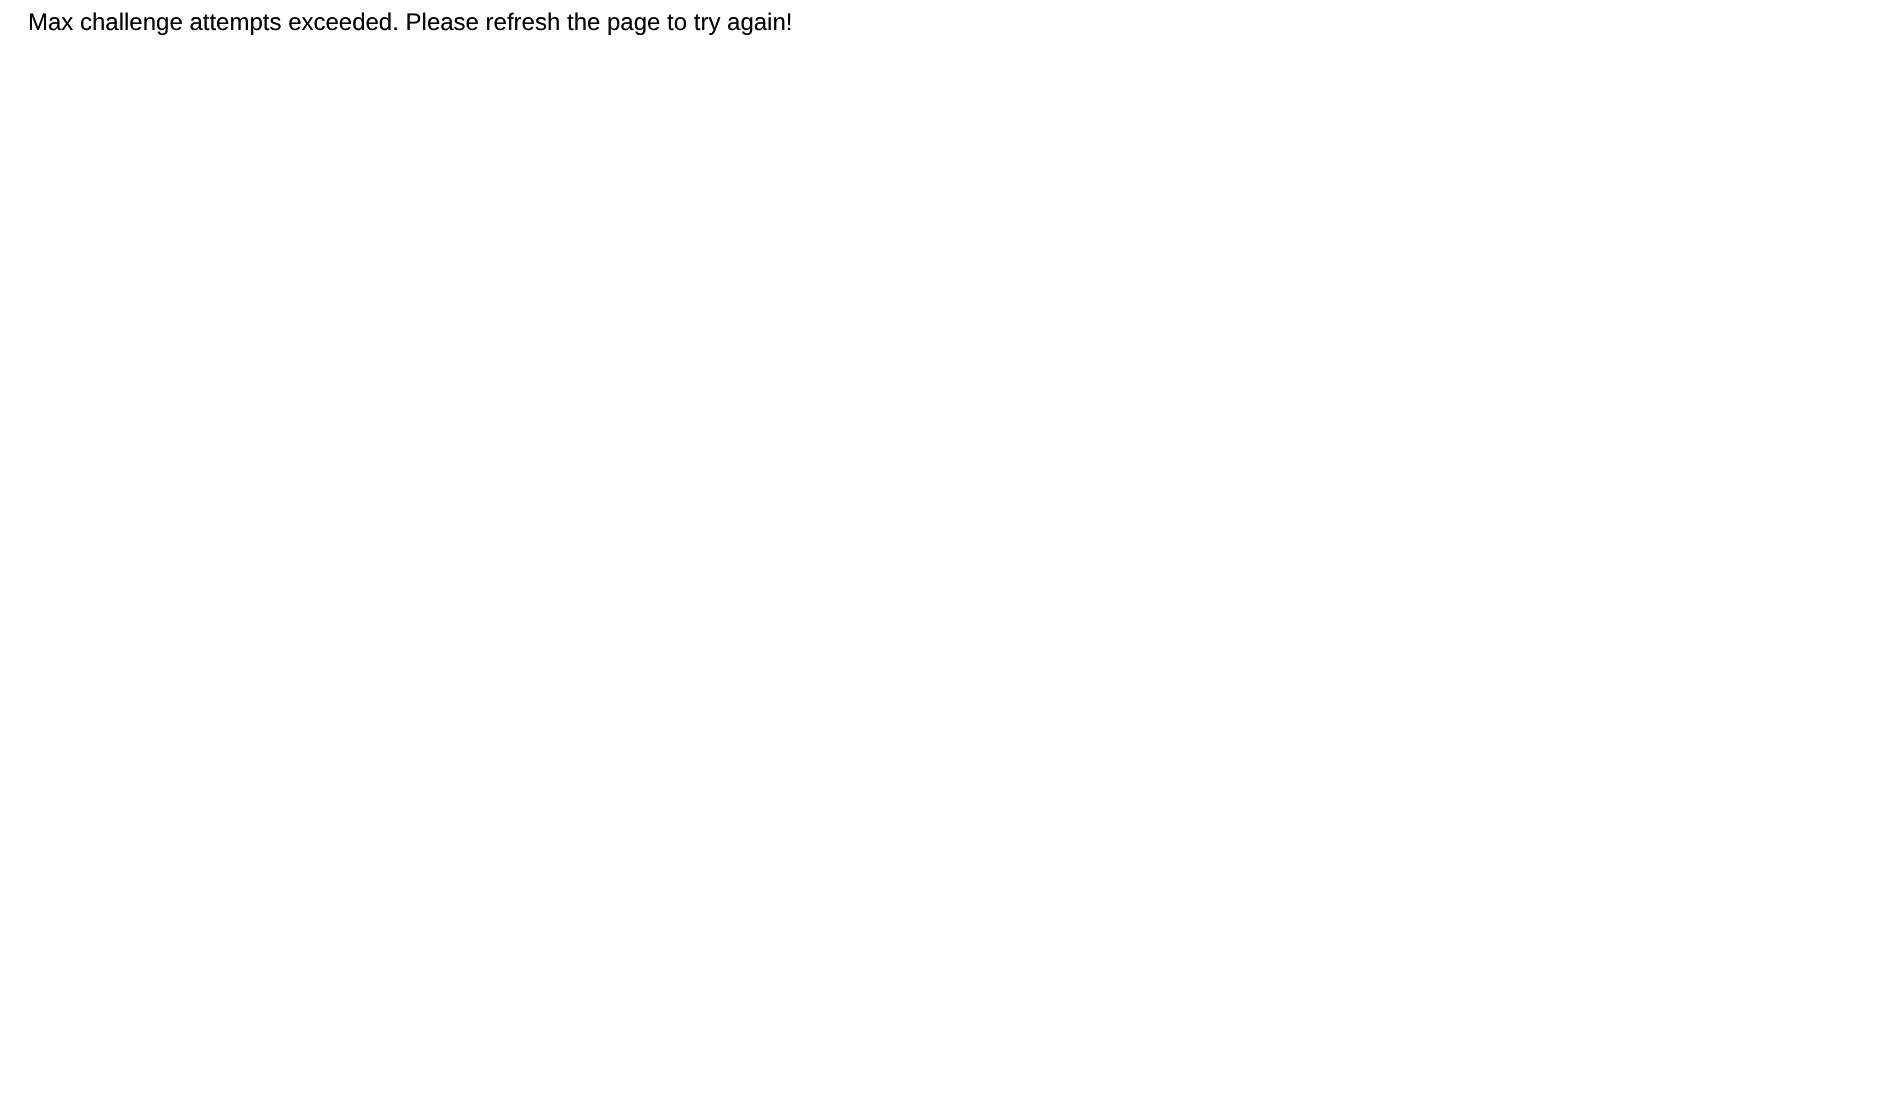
void draw(SkCanvas* c) {
SkPaint p;
p.setAntiAlias(true);
auto F=[&](const char* family, int weight, float size, bool italic = false){SkFontStyle style(weight, SkFontStyle::kNormal_Width,italic ? SkFontStyle::kItalic_Slant : SkFontStyle::kUpright_Slant);SkFont result(fontMgr->matchFamilyStyle(family, style), size);result.setSubpixel(true);return result;};
auto T=[&](const char* s, float x, float y, const SkFont& font){c->drawString(s, x, y, font, p);};
c->clear(0xffffffff);
auto f1 = F("Liberation Sans",400,24);
p.setColor(0xff000000);
T("Max challenge attempts exceeded. Please refresh the page to try again!",28,30,f1);
}
